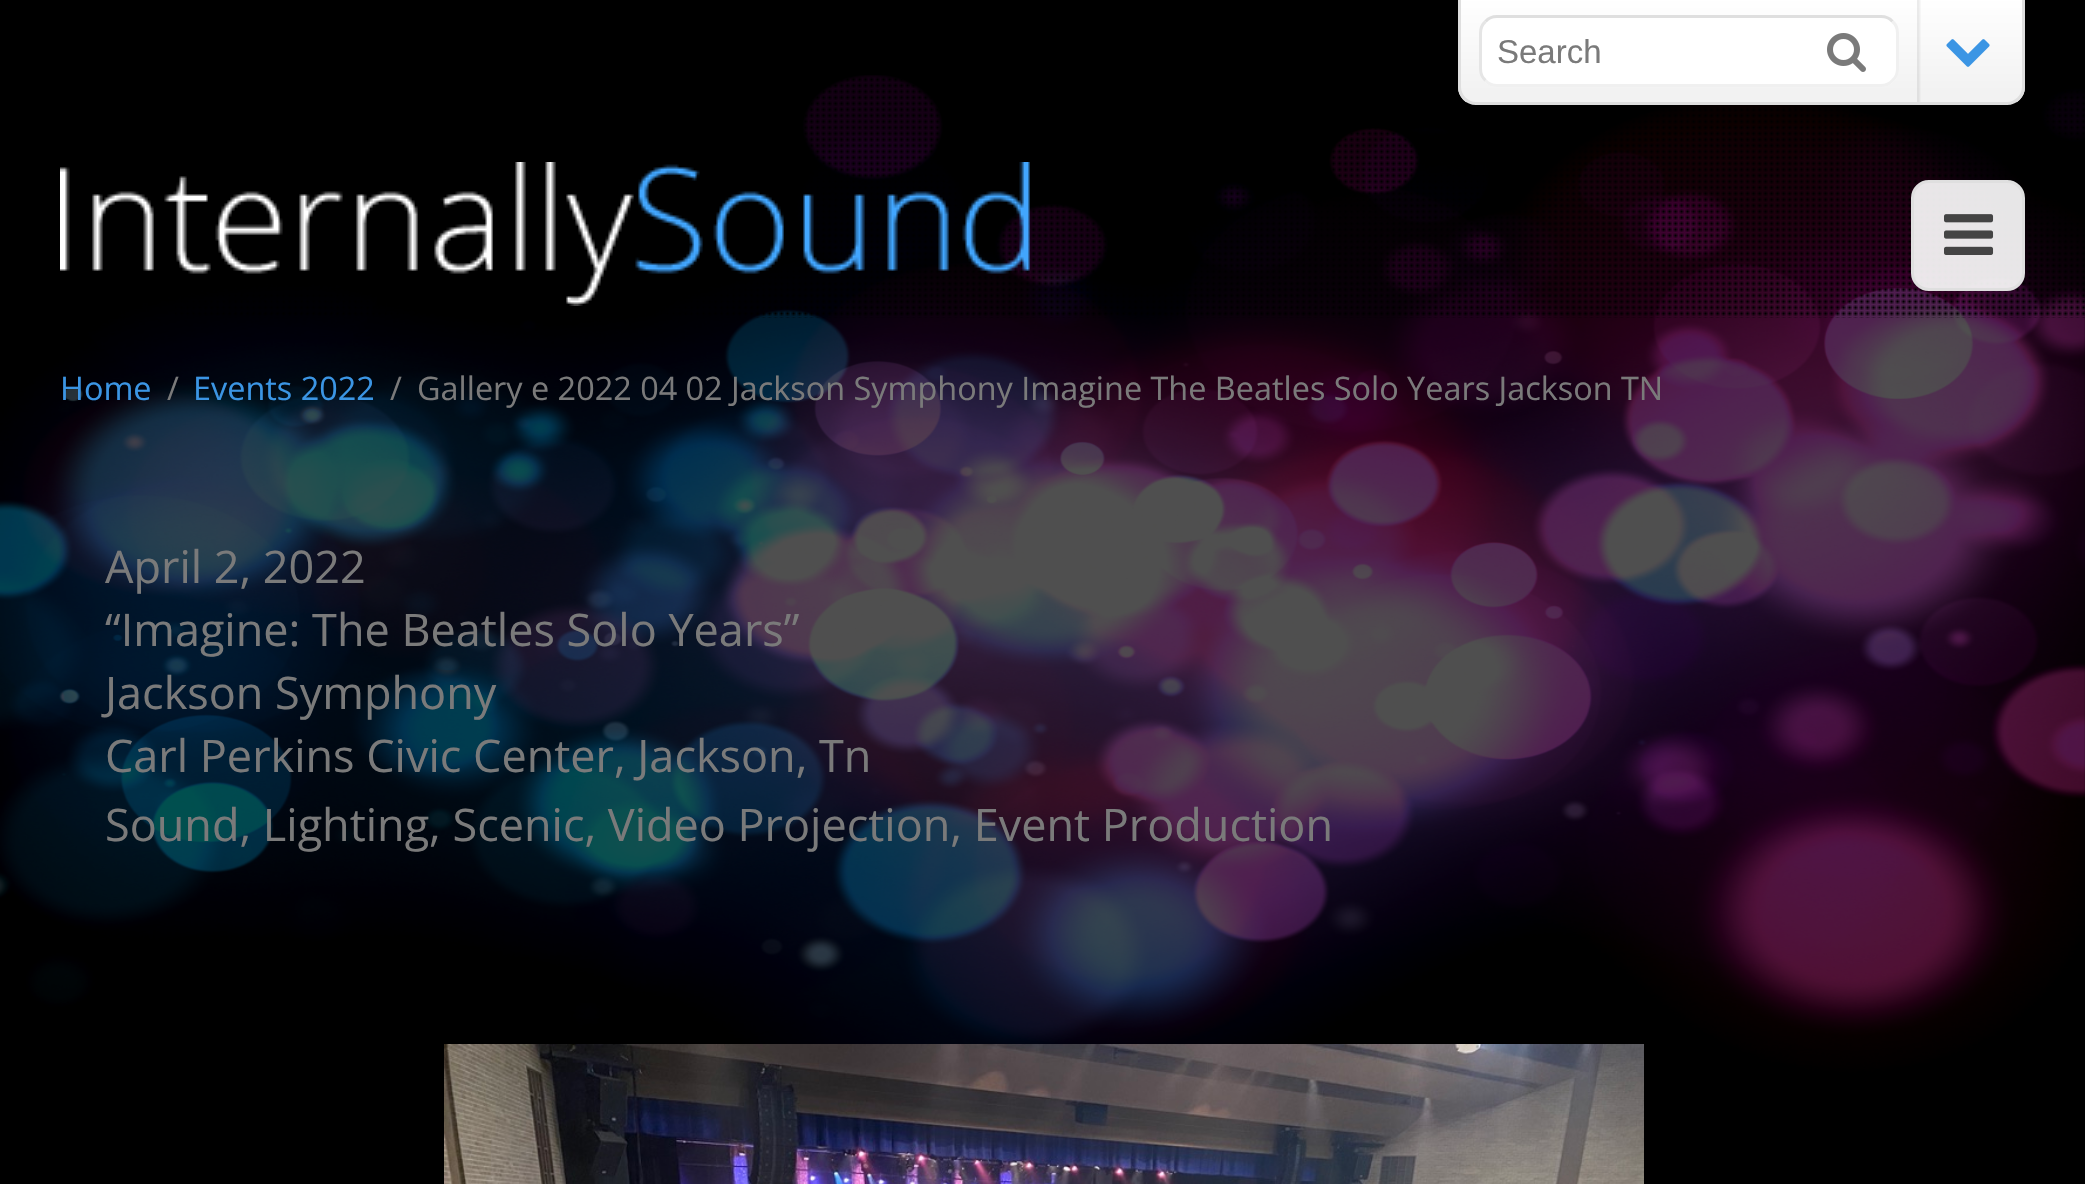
void draw(SkCanvas* c) {
SkPaint p;
p.setAntiAlias(true);
auto F=[&](const char* family, int weight, float size, bool italic = false){SkFontStyle style(weight, SkFontStyle::kNormal_Width,italic ? SkFontStyle::kItalic_Slant : SkFontStyle::kUpright_Slant);SkFont result(fontMgr->matchFamilyStyle(family, style), size);result.setSubpixel(true);return result;};
auto T=[&](const char* s, float x, float y, const SkFont& font){c->drawString(s, x, y, font, p);};
auto R=[&](float x, float y, float w, float h){c->drawRect(SkRect::MakeXYWH(x, y, w, h), p);};
auto Q=[&](float x, float y, float w, float h, float radius){c->drawRoundRect(SkRect::MakeXYWH(x, y, w, h), radius, radius, p);};
auto I=[&](const char* path, float x, float y, float w, float h){auto image = SkImages::DeferredFromEncodedData(SkData::MakeFromFileName(path));c->drawImageRect(image, SkRect::MakeXYWH(x, y, w, h), SkSamplingOptions());};
auto P=[&](const char* data, bool evenOdd = false){SkPath result = *SkParsePath::FromSVGString(data);if (evenOdd) result.setFillType(SkPathFillType::kEvenOdd);return result;};
c->clear(0xff000000);
I("4.png",0,75,2085,1109);
I("5.png",175,77,1910,241);
c->save();
c->clipPath(P("M1458-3h567v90c0 10-8 18-18 18h-531c-10 0-18-8-18-18z"),true);
{
const SkColor colors[] = {0xffffffff,0xfff2f2f2};
const float stops[] = {0,1};
const SkPoint ends[] = {{1461,-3}, {1461,92}};
p.setShader(SkGradientShader::MakeLinear(ends, colors, stops, 2, SkTileMode::kClamp));
p.setAlpha(255);
}
R(1458,0,567,102);
c->restore();
p.setShader(nullptr);
p.setColor(0xffdfdfdf);
c->drawPath(P("M1458-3h567v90c0 10-8 18-18 18h-531c-10 0-18-8-18-18zm3 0h561v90c0 8-7 15-15 15h-531c-8 0-15-7-15-15z",true),p);
p.setColor(0xffffffff);
Q(1479,15,420,72,18);
p.setStroke(true);
p.setStrokeWidth(3);
p.setColor(0xffdfdfdf);
c->drawPath(P("M1485.5 21.5c3-3.5 7-5 11.5-5h384c4.5 0 8.5 1.5 11.5 5"),p);
p.setColor(0xfff0f0f0);
c->drawPath(P("M1892.5 21.5c3.5 3 5 7 5 11.5v36c0 4.5-1.5 8.5-5 11.5c-3 3.5-7 5-11.5 5h-384c-4.5 0-8.5-1.5-11.5-5"),p);
p.setColor(0xffe5e5e5);
c->drawPath(P("M1485.5 80.5c-3.5-3-5-7-5-11.5v-36c0-4.5 1.5-8.5 5-11.5"),p);
auto f1 = F("Liberation Sans",400,33);
p.setStroke(false);
p.setColor(0xff7a7a7a);
T("Search",1497,63,f1);
I("1.png",1827,33,39,39);
I("2.png",1917,0,4,102);
I("3.png",1946,39,44,28);
I("6.png",60,162,970,144);
p.setColor(0xe6ffffff);
c->drawRoundRect(SkRect::MakeXYWH(1912.5,181.5,111,108),16.5,16.5,p);
p.setStroke(true);
p.setColor(0xffdfdfdf);
c->drawRoundRect(SkRect::MakeXYWH(1912.5,181.5,111,108),16.5,16.5,p);
I("7.png",1944,214,50,41);
auto f2 = F("Open Sans",400,32.4);
p.setStroke(false);
p.setColor(0xff3b95e4);
T("Home",60,400,f2);
p.setColor(0xff7a7a7a);
T("/",167,400,f2);
p.setColor(0xff3b95e4);
T("Events 2022",193,400,f2);
p.setColor(0xff7a7a7a);
T("/",390,400,f2);
T("Gallery e 2022 04 02 Jackson Symphony Imagine The Beatles Solo Years Jackson TN",417,400,f2);
auto f3 = F("Open Sans",400,45);
T("April 2, 2022",105,583,f3);
T("“Imagine: The Beatles Solo Years”",105,646,f3);
T("Jackson Symphony",105,709,f3);
T("Carl Perkins Civic Center, Jackson, Tn",105,772,f3);
T("Sound, Lighting, Scenic, Video Projection, Event Production",105,841,f3);
I("8.png",444,1044,1200,140);
}
